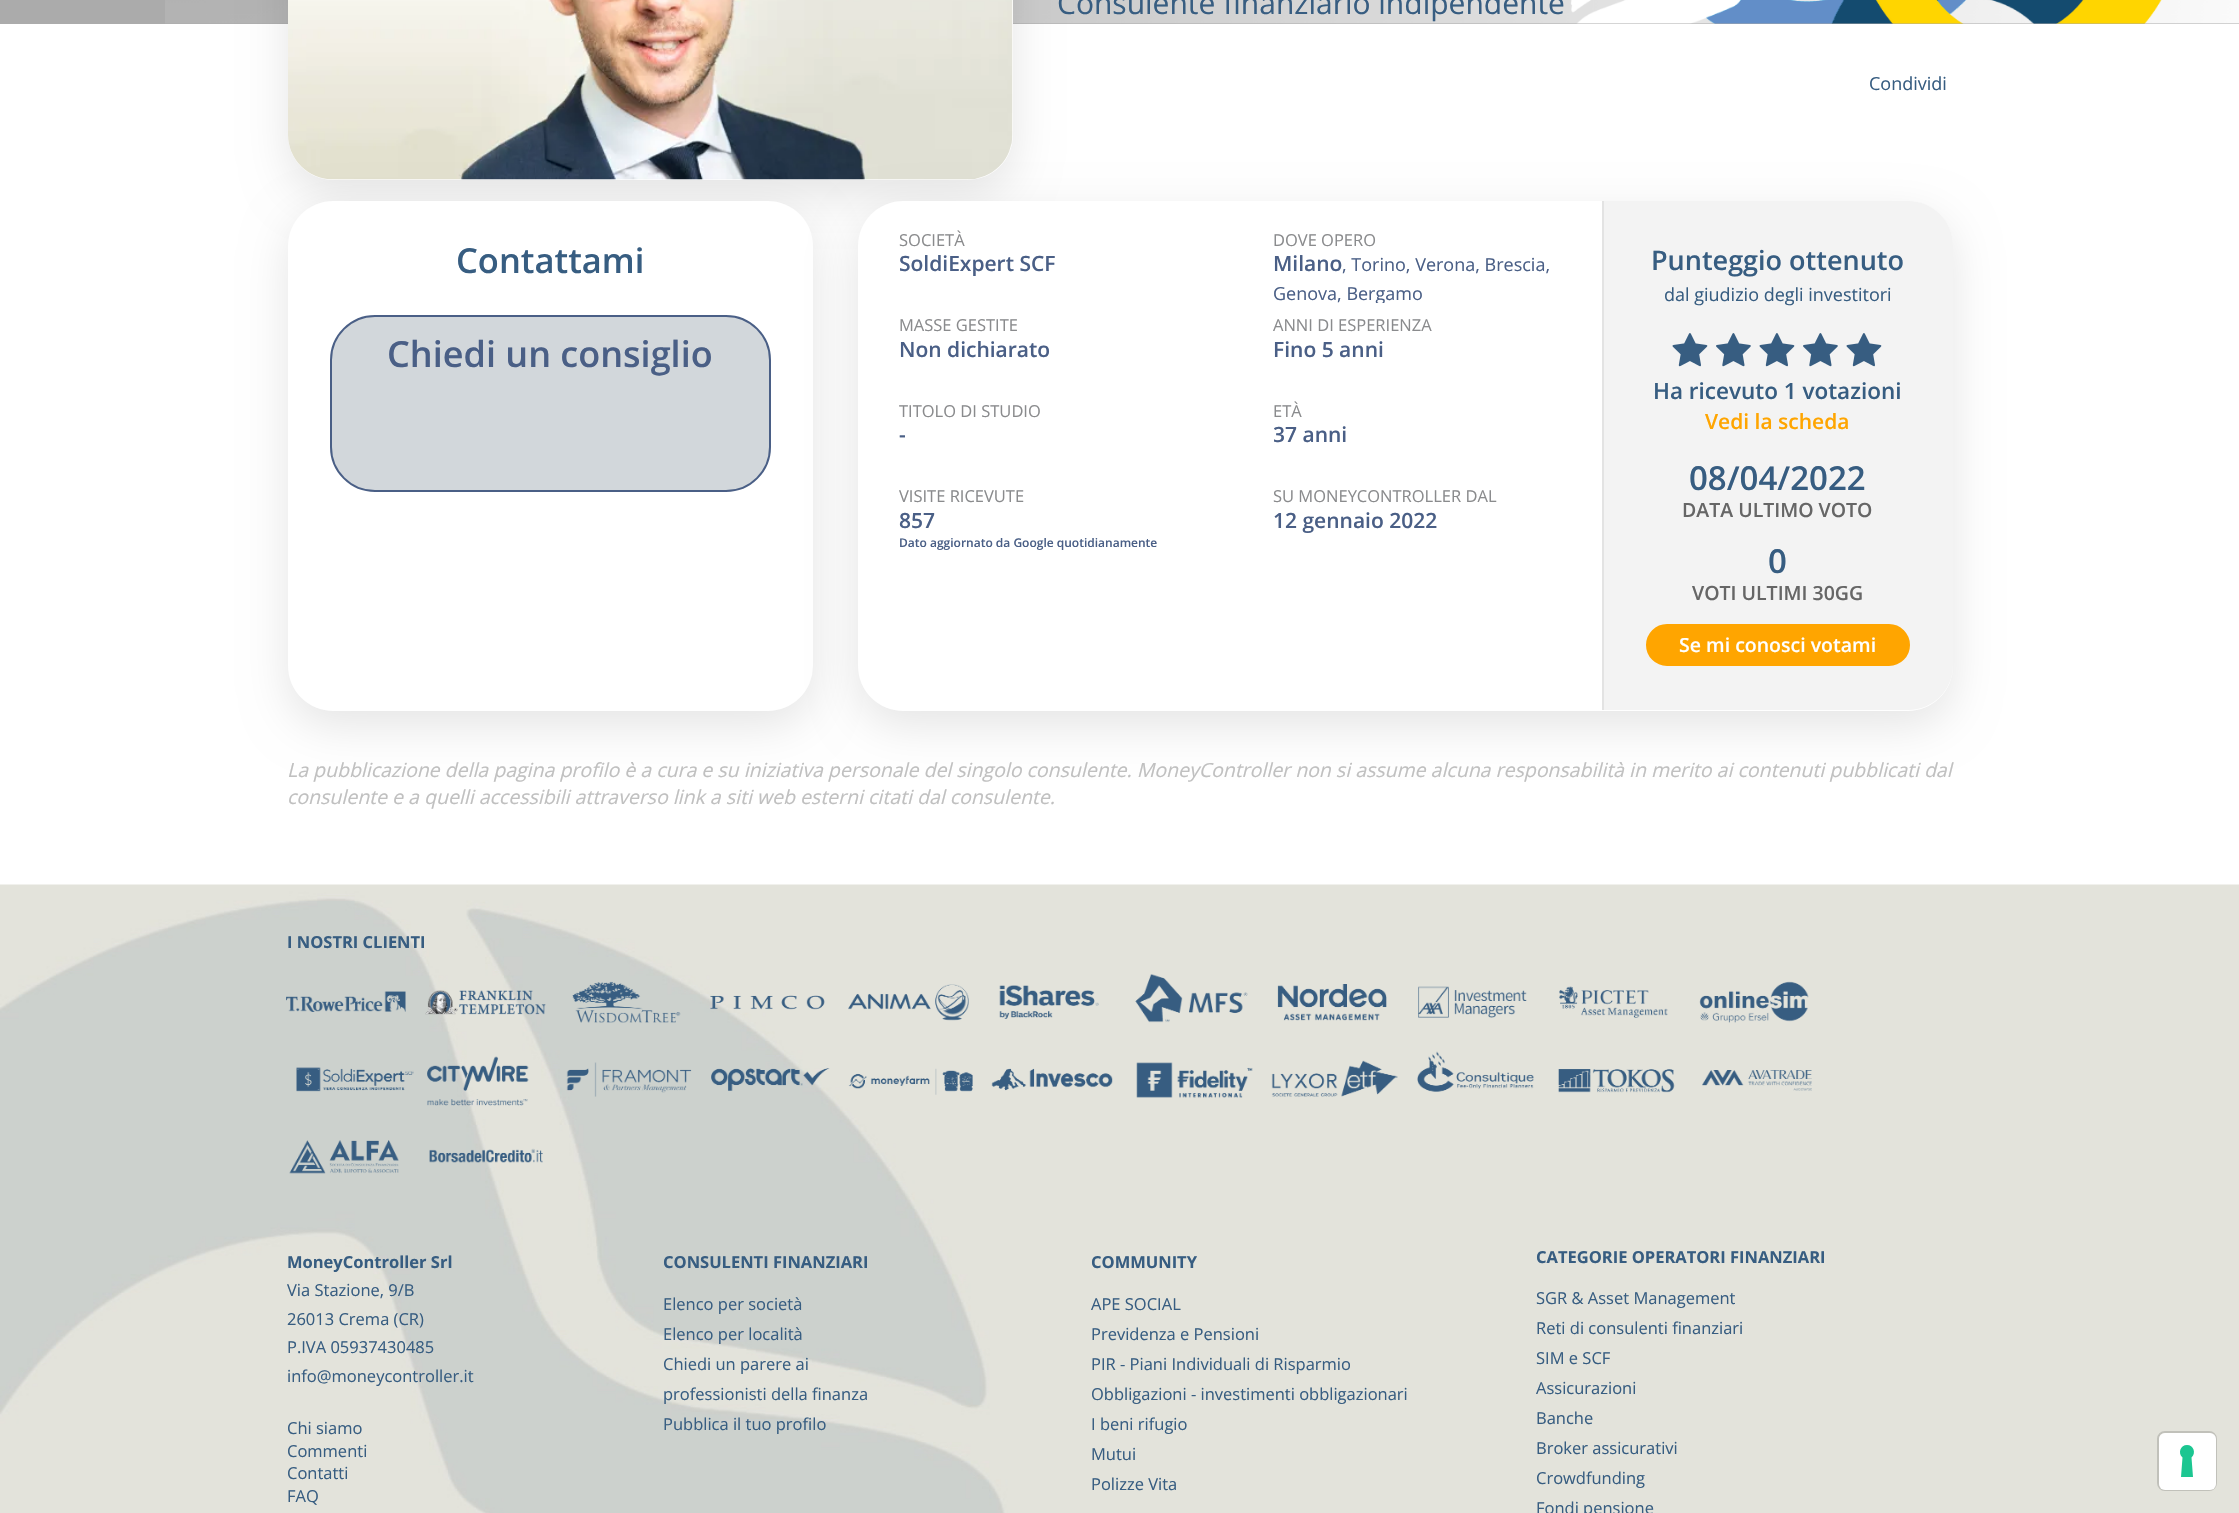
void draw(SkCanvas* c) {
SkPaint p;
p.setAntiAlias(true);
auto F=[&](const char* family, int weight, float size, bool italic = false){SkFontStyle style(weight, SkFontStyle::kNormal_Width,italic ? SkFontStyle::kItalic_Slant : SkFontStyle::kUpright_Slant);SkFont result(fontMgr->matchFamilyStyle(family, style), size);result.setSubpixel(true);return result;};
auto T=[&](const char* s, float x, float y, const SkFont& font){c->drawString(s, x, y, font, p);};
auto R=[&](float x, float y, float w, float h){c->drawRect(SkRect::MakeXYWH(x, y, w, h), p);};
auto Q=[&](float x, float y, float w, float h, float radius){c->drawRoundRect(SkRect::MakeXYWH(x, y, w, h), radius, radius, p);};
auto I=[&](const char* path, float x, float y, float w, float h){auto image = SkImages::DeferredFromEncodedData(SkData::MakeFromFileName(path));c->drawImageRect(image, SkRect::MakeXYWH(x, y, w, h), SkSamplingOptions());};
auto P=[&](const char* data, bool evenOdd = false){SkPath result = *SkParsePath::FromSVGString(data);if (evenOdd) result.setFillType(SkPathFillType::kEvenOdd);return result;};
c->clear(0xffffffff);
p.setColor(0xffababab);
R(0,0,2239,24);
I("1.png",165,0,2074,24);
p.setColor(0x1a000000);
p.setMaskFilter(SkMaskFilter::MakeBlur(kNormal_SkBlurStyle, 22.5));
c->drawRoundRect(SkRect::MakeXYWH(288,-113,725,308),45,45,p);
p.setMaskFilter(nullptr);
p.setColor(0xffffffff);
Q(288,-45,725,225,45);
I("2.png",288,0,725,180);
auto f1 = F("Open Sans",400,30);
p.setColor(0xff375d81);
T("Consulente finanziario indipendente",1057,14,f1);
auto f2 = F("Open Sans",400,18);
T("Condividi",1869,90,f2);
p.setColor(0x1a000000);
p.setMaskFilter(SkMaskFilter::MakeBlur(kNormal_SkBlurStyle, 22.5));
c->drawRoundRect(SkRect::MakeXYWH(288,216,525,510),45,45,p);
p.setMaskFilter(nullptr);
p.setColor(0xffffffff);
Q(288,201,525,510,45);
auto f3 = F("Open Sans",600,34.5);
p.setColor(0xff375d81);
T("Contattami",456,273,f3);
p.setColor(0xffd2d7db);
c->drawRoundRect(SkRect::MakeXYWH(331,316,439,175),44,44,p);
p.setStroke(true);
p.setStrokeWidth(2);
p.setColor(0xff4a5f86);
c->drawRoundRect(SkRect::MakeXYWH(331,316,439,175),44,44,p);
auto f4 = F("Open Sans",600,36);
p.setStroke(false);
T("Chiedi un consiglio",387,367,f4);
p.setColor(0x1a000000);
p.setMaskFilter(SkMaskFilter::MakeBlur(kNormal_SkBlurStyle, 22.5));
c->drawRoundRect(SkRect::MakeXYWH(858,216,1095,510),45,45,p);
p.setMaskFilter(nullptr);
p.setColor(0xffffffff);
Q(858,201,1095,510,45);
auto f5 = F("Open Sans",400,16.5);
p.setColor(0xff8a8b8d);
T("SOCIETÀ",899,246,f5);
auto f6 = F("Open Sans",600,21);
p.setColor(0xff4a5f86);
T("SoldiExpert SCF",899,271,f6);
p.setColor(0xff8a8b8d);
T("DOVE OPERO",1273,246,f5);
p.setColor(0xff4a5f86);
T("Milano",1273,271,f6);
T(", Torino, Verona, Brescia,",1342,271,f2);
c->save();
c->clipRect(SkRect::MakeXYWH(1274,251,328,52));
T("Genova, Bergamo",1273,300,f2);
c->restore();
p.setColor(0xff8a8b8d);
T("MASSE GESTITE",899,331,f5);
p.setColor(0xff4a5f86);
T("Non dichiarato",899,357,f6);
p.setColor(0xff8a8b8d);
T("ANNI DI ESPERIENZA",1273,331,f5);
p.setColor(0xff4a5f86);
T("Fino 5 anni",1273,357,f6);
p.setColor(0xff8a8b8d);
T("TITOLO DI STUDIO",899,417,f5);
p.setColor(0xff4a5f86);
T("-",899,442,f6);
p.setColor(0xff8a8b8d);
T("ETÀ",1273,417,f5);
c->save();
c->clipRect(SkRect::MakeXYWH(1274,422,328,52));
p.setColor(0xff4a5f86);
T("37 anni",1273,442,f6);
c->restore();
p.setColor(0xff8a8b8d);
T("VISITE RICEVUTE",899,502,f5);
p.setColor(0xff4a5f86);
T("857",899,528,f6);
auto f7 = F("Open Sans",600,12);
T("Dato aggiornato da Google quotidianamente",899,547,f7);
p.setColor(0xff8a8b8d);
T("SU MONEYCONTROLLER DAL",1273,502,f5);
p.setColor(0xff4a5f86);
T("12 gennaio 2022",1273,528,f6);
p.setColor(0xfff3f3f3);
c->drawPath(P("M1602 201h306c25 0 45 20 45 45v419c0 25-20 45-45 45h-306z"),p);
p.setColor(0xffe3e3e3);
R(1602,201,2,509);
auto f8 = F("Open Sans",600,27);
p.setColor(0xff375d81);
T("Punteggio ottenuto",1651,270,f8);
T("dal giudizio degli investitori",1664,301,f2);
I("3.png",1672,333,36,34);
I("4.png",1716,333,35,34);
I("3.png",1759,333,36,34);
I("4.png",1803,333,35,34);
I("3.png",1846,333,36,34);
auto f9 = F("Open Sans",600,22.5);
T("Ha ricevuto 1 votazioni",1653,399,f9);
p.setColor(0xffffa500);
T("Vedi la scheda",1705,429,f6);
auto f10 = F("Open Sans",600,33);
p.setColor(0xff375d81);
T("08/04/2022",1689,490,f10);
auto f11 = F("Open Sans",600,19.5);
p.setColor(0xff666666);
T("DATA ULTIMO VOTO",1682,517,f11);
p.setColor(0xff375d81);
T("0",1768,573,f10);
p.setColor(0xff666666);
T("VOTI ULTIMI 30GG",1692,600,f11);
p.setColor(0xffffa500);
c->drawRoundRect(SkRect::MakeXYWH(1647.5,625.5,261,39),19.5,19.5,p);
p.setStroke(true);
p.setStrokeWidth(3);
c->drawRoundRect(SkRect::MakeXYWH(1647.5,625.5,261,39),19.5,19.5,p);
p.setStroke(false);
p.setColor(0xffffffff);
T("Se mi conosci votami",1679,652,f11);
auto f12 = F("Open Sans",400,19.5,true);
p.setColor(0xffc0c0c0);
T("La pubblicazione della pagina profilo è a cura e su iniziativa personale del singolo consulente. MoneyController non si assume alcuna responsabilità in merito ai contenuti pubblicati dal",287,777,f12);
T("consulente e a quelli accessibili attraverso link a siti web esterni citati dal consulente.",287,804,f12);
I("5.png",0,884,2239,629);
auto f13 = F("Open Sans",700,16.5);
p.setColor(0xff375d81);
T("I NOSTRI CLIENTI",287,948,f13);
I("6.png",286,991,120,21);
I("7.png",425,990,121,25);
I("8.png",572,981,109,42);
I("9.png",710,995,115,15);
I("10.png",848,984,121,37);
I("11.png",999,985,100,34);
I("12.png",1135,974,113,49);
I("13.png",1277,984,110,37);
I("14.png",1418,986,109,32);
I("15.png",1559,986,109,32);
I("16.png",1699,981,110,42);
I("17.png",296,1067,118,25);
I("18.png",427,1056,102,50);
I("19.png",566,1062,126,35);
I("20.png",711,1068,119,23);
I("21.png",848,1068,125,27);
I("22.png",991,1068,122,23);
I("23.png",1136,1062,117,36);
I("24.png",1271,1060,127,37);
I("25.png",1417,1051,117,41);
I("26.png",1558,1069,117,24);
I("27.png",1702,1070,110,21);
I("28.png",289,1140,110,34);
I("29.png",429,1148,114,15);
T("MoneyController Srl",287,1268,f13);
T("Via Stazione, 9/B",287,1296,f5);
T("26013 Crema (CR)",287,1325,f5);
T("P.IVA 05937430485",287,1353,f5);
T("info@moneycontroller.it",287,1382,f5);
T("Chi siamo",287,1434,f5);
T("Commenti",287,1457,f5);
T("Contatti",287,1479,f5);
T("FAQ",287,1502,f5);
T("CONSULENTI FINANZIARI",663,1268,f13);
T("Elenco per società",663,1310,f5);
T("Elenco per località",663,1340,f5);
T("Chiedi un parere ai",663,1370,f5);
T("professionisti della finanza",663,1400,f5);
T("Pubblica il tuo profilo",663,1430,f5);
T("COMMUNITY",1091,1268,f13);
T("APE SOCIAL",1091,1310,f5);
T("Previdenza e Pensioni",1091,1340,f5);
T("PIR - Piani Individuali di Risparmio",1091,1370,f5);
T("Obbligazioni - investimenti obbligazionari",1091,1400,f5);
T("I beni rifugio",1091,1430,f5);
T("Mutui",1091,1460,f5);
T("Polizze Vita",1091,1490,f5);
T("CATEGORIE OPERATORI FINANZIARI",1536,1263,f13);
T("SGR & Asset Management",1536,1304,f5);
T("Reti di consulenti finanziari",1536,1334,f5);
T("SIM e SCF",1536,1364,f5);
T("Assicurazioni",1536,1394,f5);
T("Banche",1536,1424,f5);
T("Broker assicurativi",1536,1454,f5);
T("Crowdfunding",1536,1484,f5);
T("Fondi pensione",1536,1514,f5);
p.setStroke(true);
p.setStrokeWidth(2);
p.setColor(0xffc1c1ba);
c->drawRoundRect(SkRect::MakeXYWH(2158,1432,58,58),7,7,p);
p.setStroke(false);
p.setColor(0xffffffff);
Q(2159,1433,57,57,6);
p.setColor(0xff1cc691);
c->drawPath(P("M2187 1445c6.5 0 9.5 8 4.5 12.5l1.5 19.5h-12l1.5-19.5c-5-4.5-2-12.5 4.5-12.5z",true),p);
}
